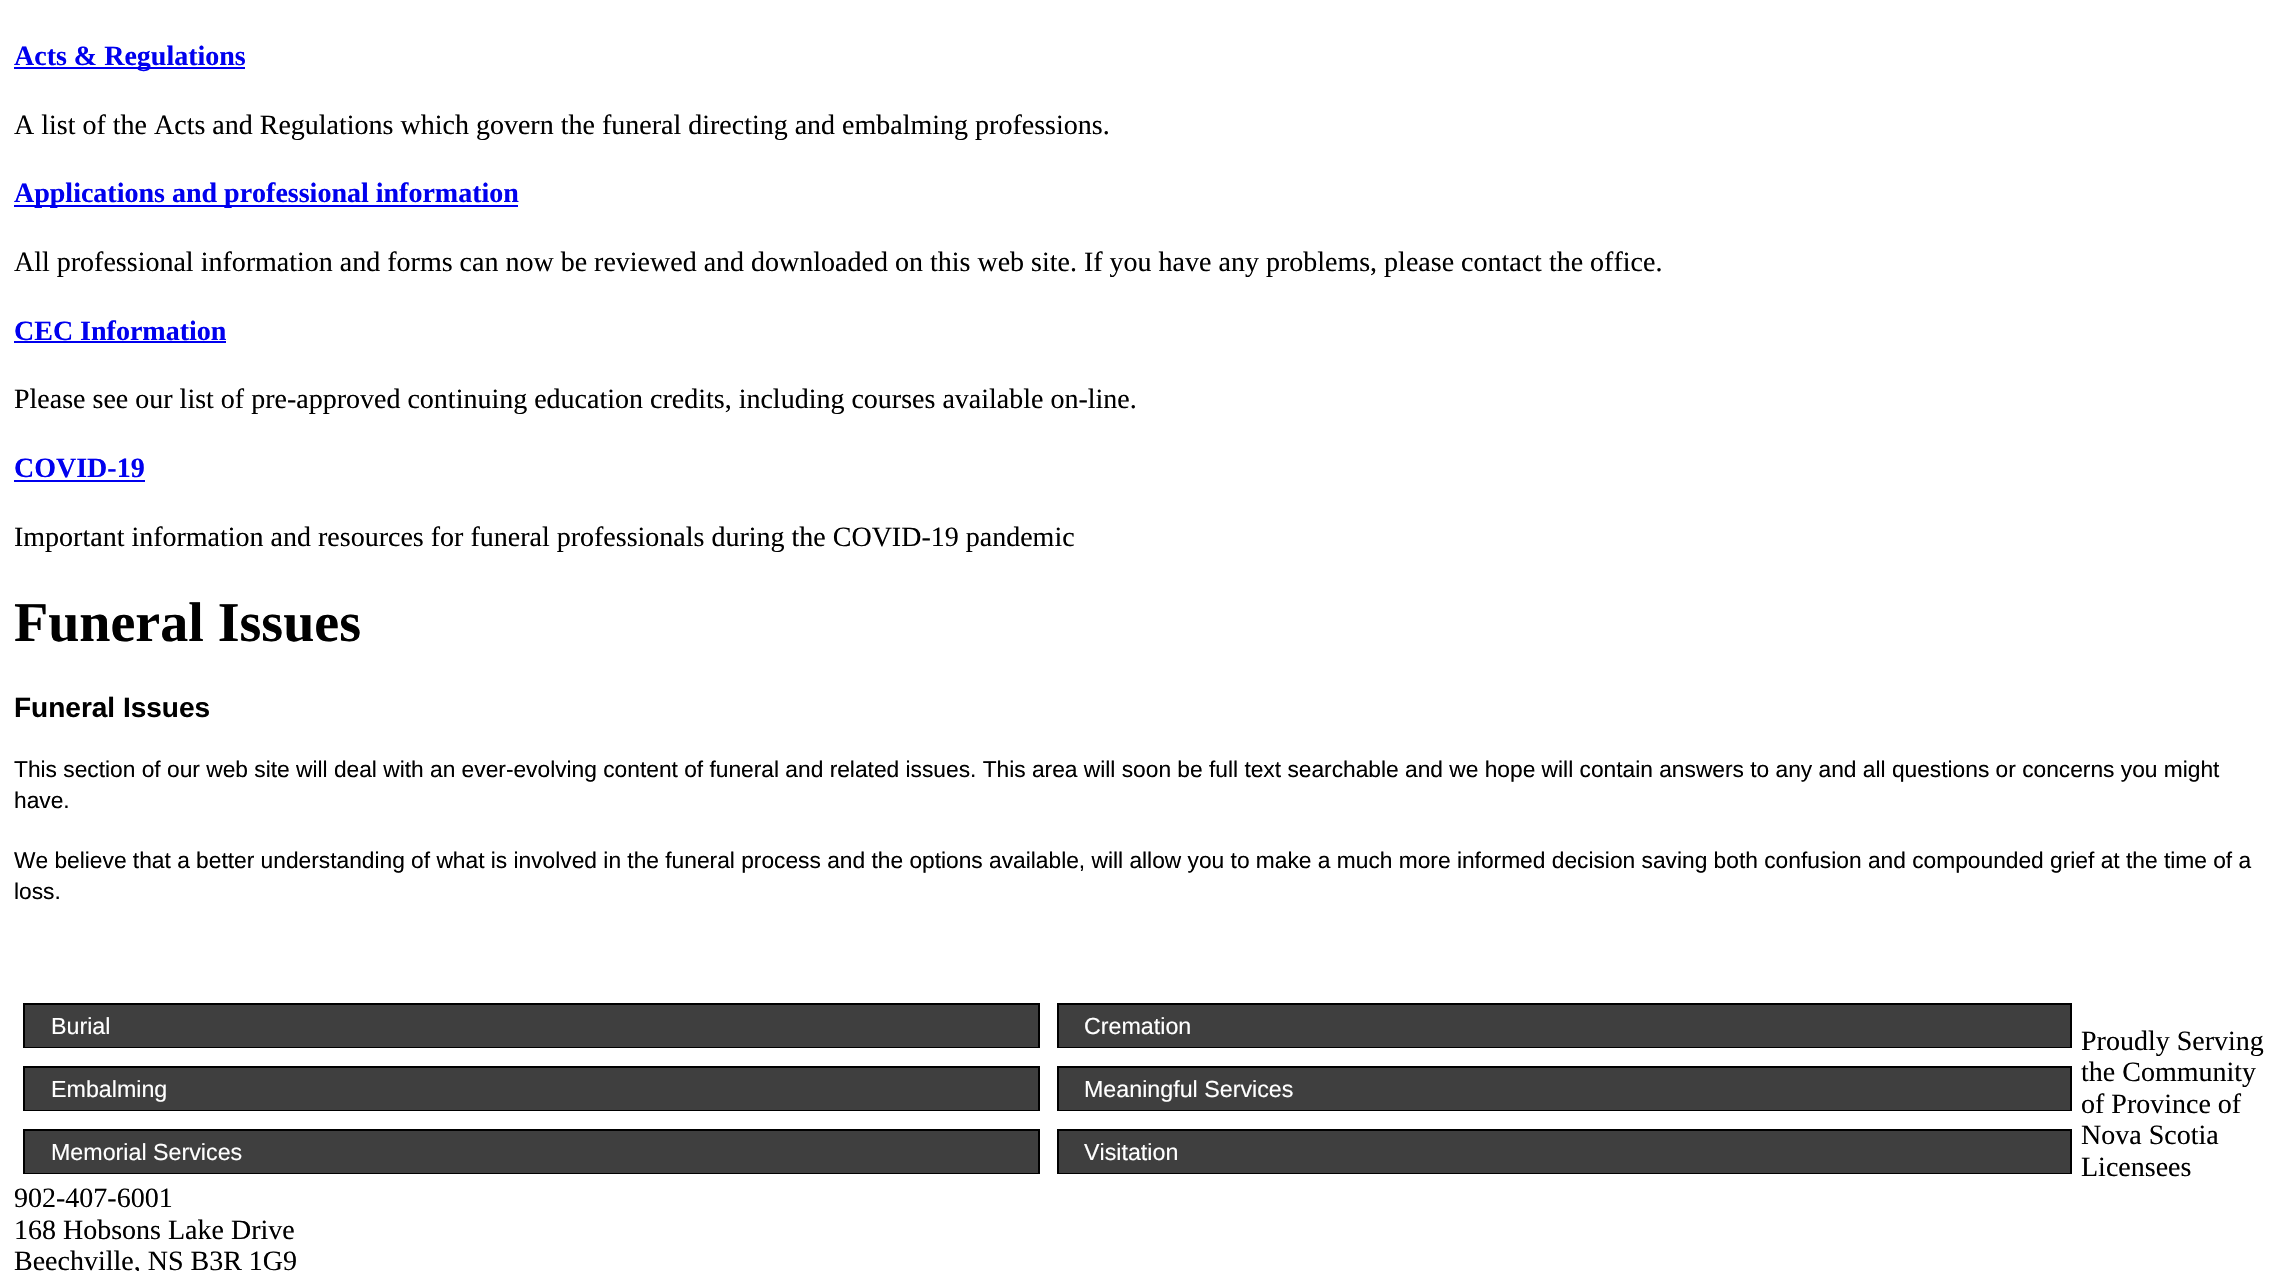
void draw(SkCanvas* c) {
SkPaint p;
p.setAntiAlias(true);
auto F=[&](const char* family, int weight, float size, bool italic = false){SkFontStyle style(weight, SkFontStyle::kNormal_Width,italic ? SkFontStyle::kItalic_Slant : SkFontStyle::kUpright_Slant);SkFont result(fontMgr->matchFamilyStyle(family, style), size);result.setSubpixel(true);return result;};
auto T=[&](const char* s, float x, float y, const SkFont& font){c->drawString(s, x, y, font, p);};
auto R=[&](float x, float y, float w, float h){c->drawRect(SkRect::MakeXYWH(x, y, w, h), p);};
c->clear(0xffffffff);
p.setColor(0xff0000ee);
R(14,67,231,2);
auto f1 = F("Liberation Serif",700,28);
T("Acts & Regulations",14,65,f1);
auto f2 = F("Liberation Serif",400,28);
p.setColor(0xff000000);
T("A list of the Acts and Regulations which govern the funeral directing and embalming professions.",14,134,f2);
p.setColor(0xff0000ee);
R(14,205,504,2);
T("Applications and professional information",14,202,f1);
p.setColor(0xff000000);
T("All professional information and forms can now be reviewed and downloaded on this web site. If you have any problems, please contact the office.",14,271,f2);
p.setColor(0xff0000ee);
T("CEC Information",14,340,f1);
R(14,341,212,2);
p.setColor(0xff000000);
T("Please see our list of pre-approved continuing education credits, including courses available on-line.",14,408,f2);
p.setColor(0xff0000ee);
T("COVID-19",14,477,f1);
R(14,480,131,2);
p.setColor(0xff000000);
T("Important information and resources for funeral professionals during the COVID-19 pandemic",14,546,f2);
auto f3 = F("Liberation Serif",700,56);
T("Funeral Issues",14,641,f3);
auto f4 = F("Liberation Sans",700,28);
T("Funeral Issues",14,717,f4);
auto f5 = F("Liberation Sans",400,22.75);
T("This section of our web site will deal with an ever-evolving content of funeral and related issues. This area will soon be full text searchable and we hope will contain answers to any and all questions or concerns you might",14,777,f5);
T("have.",14,808,f5);
T("We believe that a better understanding of what is involved in the funeral process and the options available, will allow you to make a much more informed decision saving both confusion and compounded grief at the time of a",14,868,f5);
T("loss.",14,899,f5);
p.setStroke(true);
p.setStrokeWidth(2);
c->drawRect(SkRect::MakeXYWH(24,1004,1015,43),p);
p.setStroke(false);
p.setColor(0xff3f3f3f);
R(25,1005,1013,42);
auto f6 = F("Liberation Sans",400,23.25);
p.setColor(0xffffffff);
T("Burial",51,1034,f6);
p.setStroke(true);
p.setColor(0xff000000);
c->drawRect(SkRect::MakeXYWH(1058,1004,1013,43),p);
p.setStroke(false);
p.setColor(0xff3f3f3f);
R(1059,1005,1011,42);
p.setColor(0xffffffff);
T("Cremation",1084,1034,f6);
p.setStroke(true);
p.setColor(0xff000000);
c->drawRect(SkRect::MakeXYWH(24,1067,1015,43),p);
p.setStroke(false);
p.setColor(0xff3f3f3f);
R(25,1068,1013,42);
p.setColor(0xffffffff);
T("Embalming",51,1097,f6);
p.setStroke(true);
p.setColor(0xff000000);
c->drawRect(SkRect::MakeXYWH(1058,1067,1013,43),p);
p.setStroke(false);
p.setColor(0xff3f3f3f);
R(1059,1068,1011,42);
p.setColor(0xffffffff);
T("Meaningful Services",1084,1097,f6);
p.setStroke(true);
p.setColor(0xff000000);
c->drawRect(SkRect::MakeXYWH(24,1130,1015,43),p);
p.setStroke(false);
p.setColor(0xff3f3f3f);
R(25,1131,1013,42);
p.setColor(0xffffffff);
T("Memorial Services",51,1160,f6);
p.setStroke(true);
p.setColor(0xff000000);
c->drawRect(SkRect::MakeXYWH(1058,1130,1013,43),p);
p.setStroke(false);
p.setColor(0xff3f3f3f);
R(1059,1131,1011,42);
p.setColor(0xffffffff);
T("Visitation",1084,1160,f6);
p.setColor(0xff000000);
T("Proudly Serving",2081,1050,f2);
T("the Community",2081,1081,f2);
T("of Province of",2081,1113,f2);
T("Nova Scotia",2081,1144,f2);
T("Licensees",2081,1176,f2);
T("902-407-6001",14,1207,f2);
T("168 Hobsons Lake Drive",14,1239,f2);
T("Beechville, NS B3R 1G9",14,1270,f2);
}
